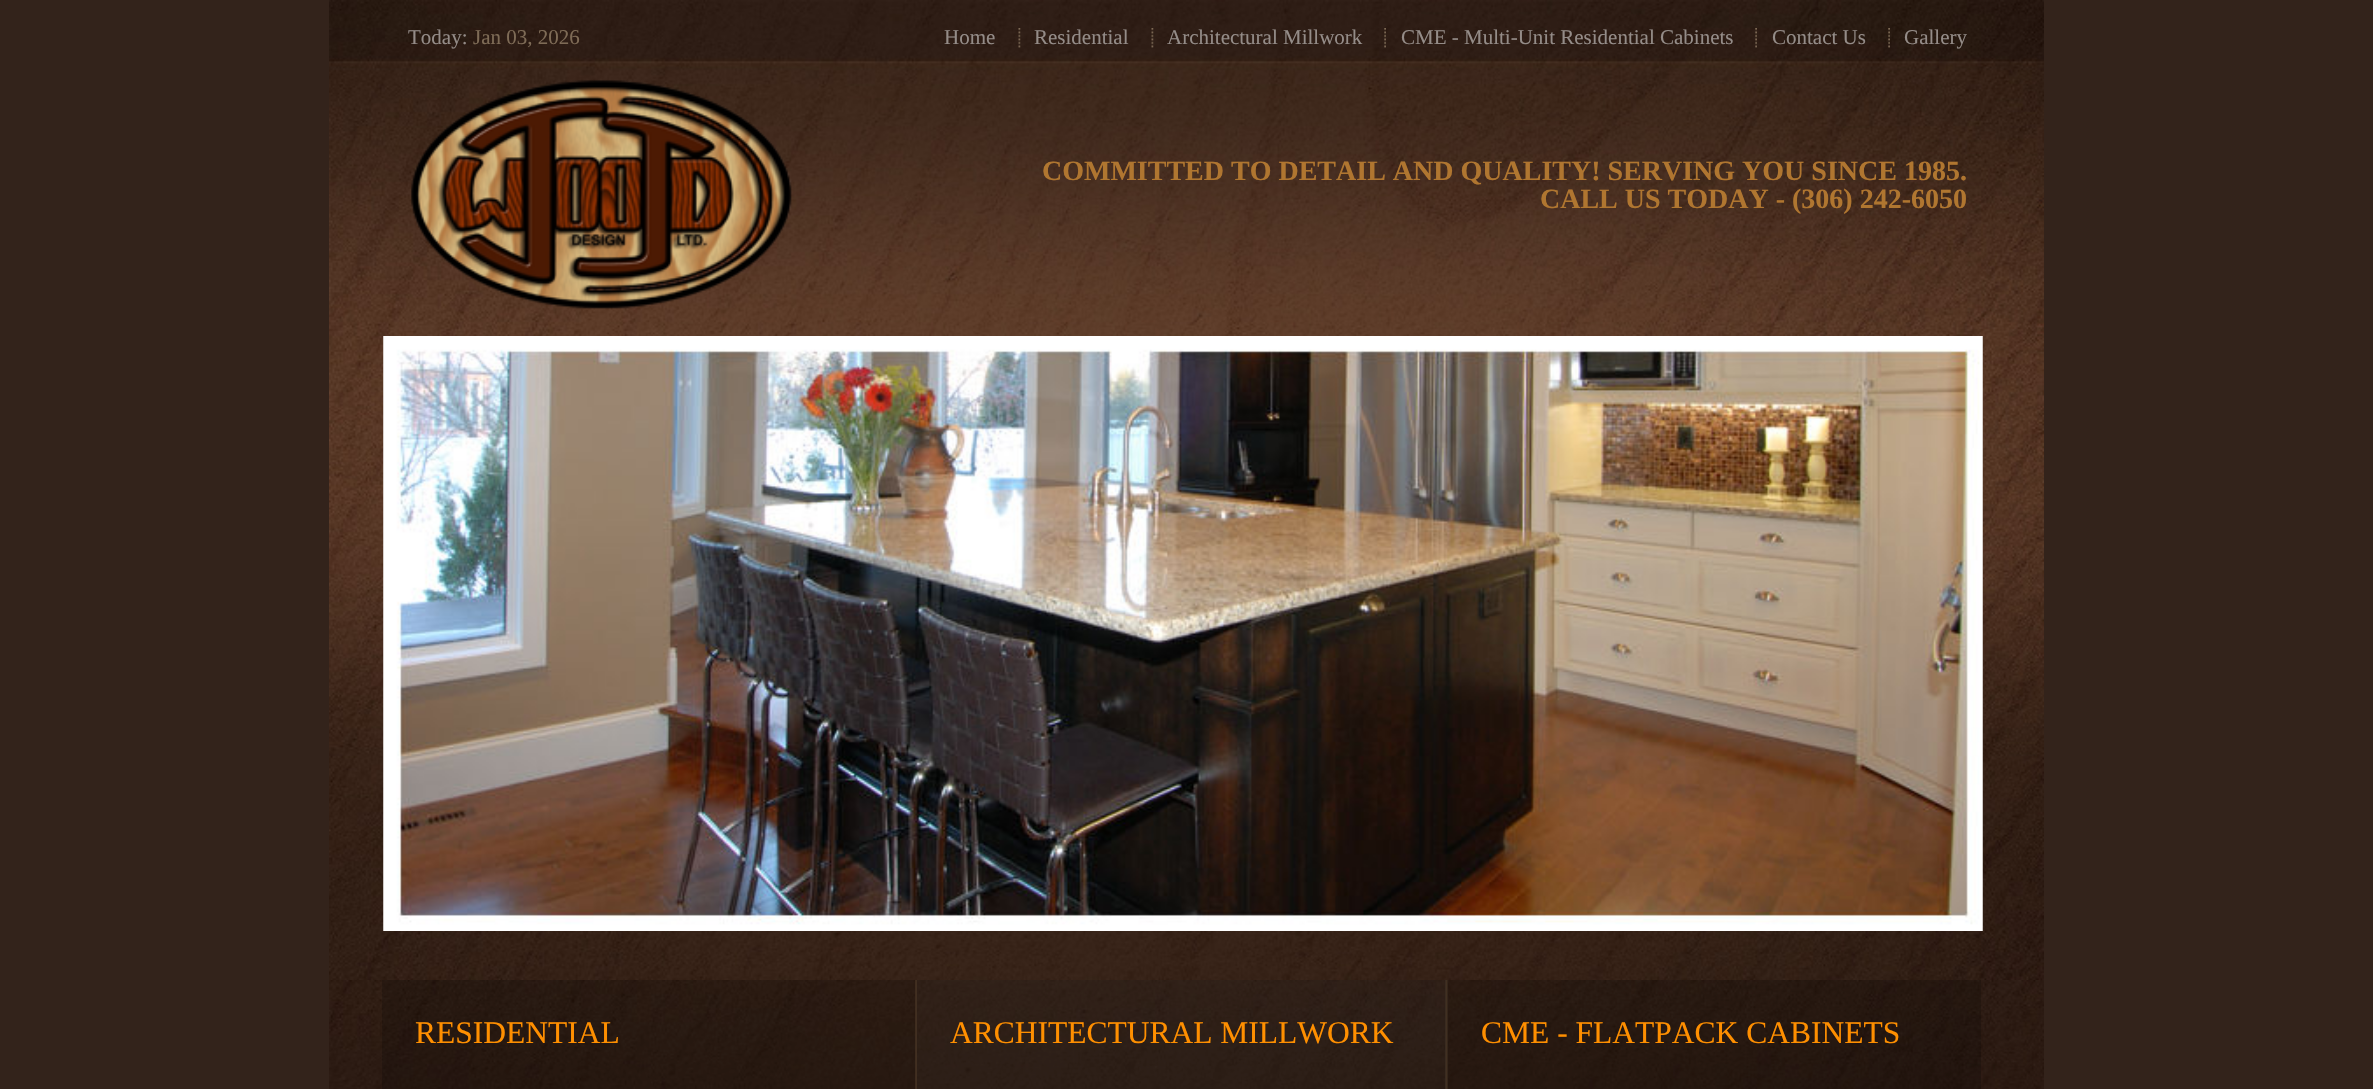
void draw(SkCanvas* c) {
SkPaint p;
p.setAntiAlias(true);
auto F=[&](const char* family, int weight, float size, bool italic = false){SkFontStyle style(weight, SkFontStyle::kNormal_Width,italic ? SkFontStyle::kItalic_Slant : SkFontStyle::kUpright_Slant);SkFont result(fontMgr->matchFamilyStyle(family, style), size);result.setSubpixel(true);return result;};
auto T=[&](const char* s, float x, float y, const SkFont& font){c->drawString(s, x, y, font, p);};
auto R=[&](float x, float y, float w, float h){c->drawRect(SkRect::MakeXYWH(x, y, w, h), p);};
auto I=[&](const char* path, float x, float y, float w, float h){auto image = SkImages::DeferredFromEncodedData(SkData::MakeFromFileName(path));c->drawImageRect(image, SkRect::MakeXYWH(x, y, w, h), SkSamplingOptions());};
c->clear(0xff33231b);
I("1.png",329,0,1715,980);
auto f1 = F("Liberation Serif",400,21);
p.setColor(0xff948c88);
T("Today:",408,44,f1);
p.setColor(0xff7e6b56);
T("Jan 03, 2026",473,44,f1);
p.setColor(0xff948c88);
T("Home",944,44,f1);
I("2.png",1018,28,3,20);
T("Residential",1034,44,f1);
I("3.png",1151,28,3,20);
T("Architectural Millwork",1167,44,f1);
I("4.png",1384,28,2,20);
T("CME - Multi-Unit Residential Cabinets",1401,44,f1);
I("5.png",1755,28,2,20);
T("Contact Us",1772,44,f1);
I("6.png",1888,28,2,20);
T("Gallery",1904,44,f1);
I("7.png",411,80,381,229);
auto f2 = F("Liberation Serif",700,28);
p.setColor(0xffb07630);
T("COMMITTED TO DETAIL AND QUALITY! SERVING YOU SINCE 1985.",1042,180,f2);
T("CALL US TODAY - (306) 242-6050",1540,208,f2);
I("8.png",383,336,1600,595);
I("9.png",329,980,1715,109);
I("10.png",915,980,2,109);
p.setColor(0xff412f21);
R(1445,980,3,109);
p.setColor(0x33000000);
R(382,980,533,109);
auto f3 = F("Liberation Serif",400,31.5);
p.setColor(0xffff8f00);
T("RESIDENTIAL",415,1043,f3);
p.setColor(0x381b1b1b);
R(917,980,529,109);
p.setColor(0xffff8f00);
T("ARCHITECTURAL MILLWORK",950,1043,f3);
p.setColor(0x33000000);
R(1447,980,534,109);
p.setColor(0xffff8f00);
T("CME - FLATPACK CABINETS",1481,1043,f3);
}
